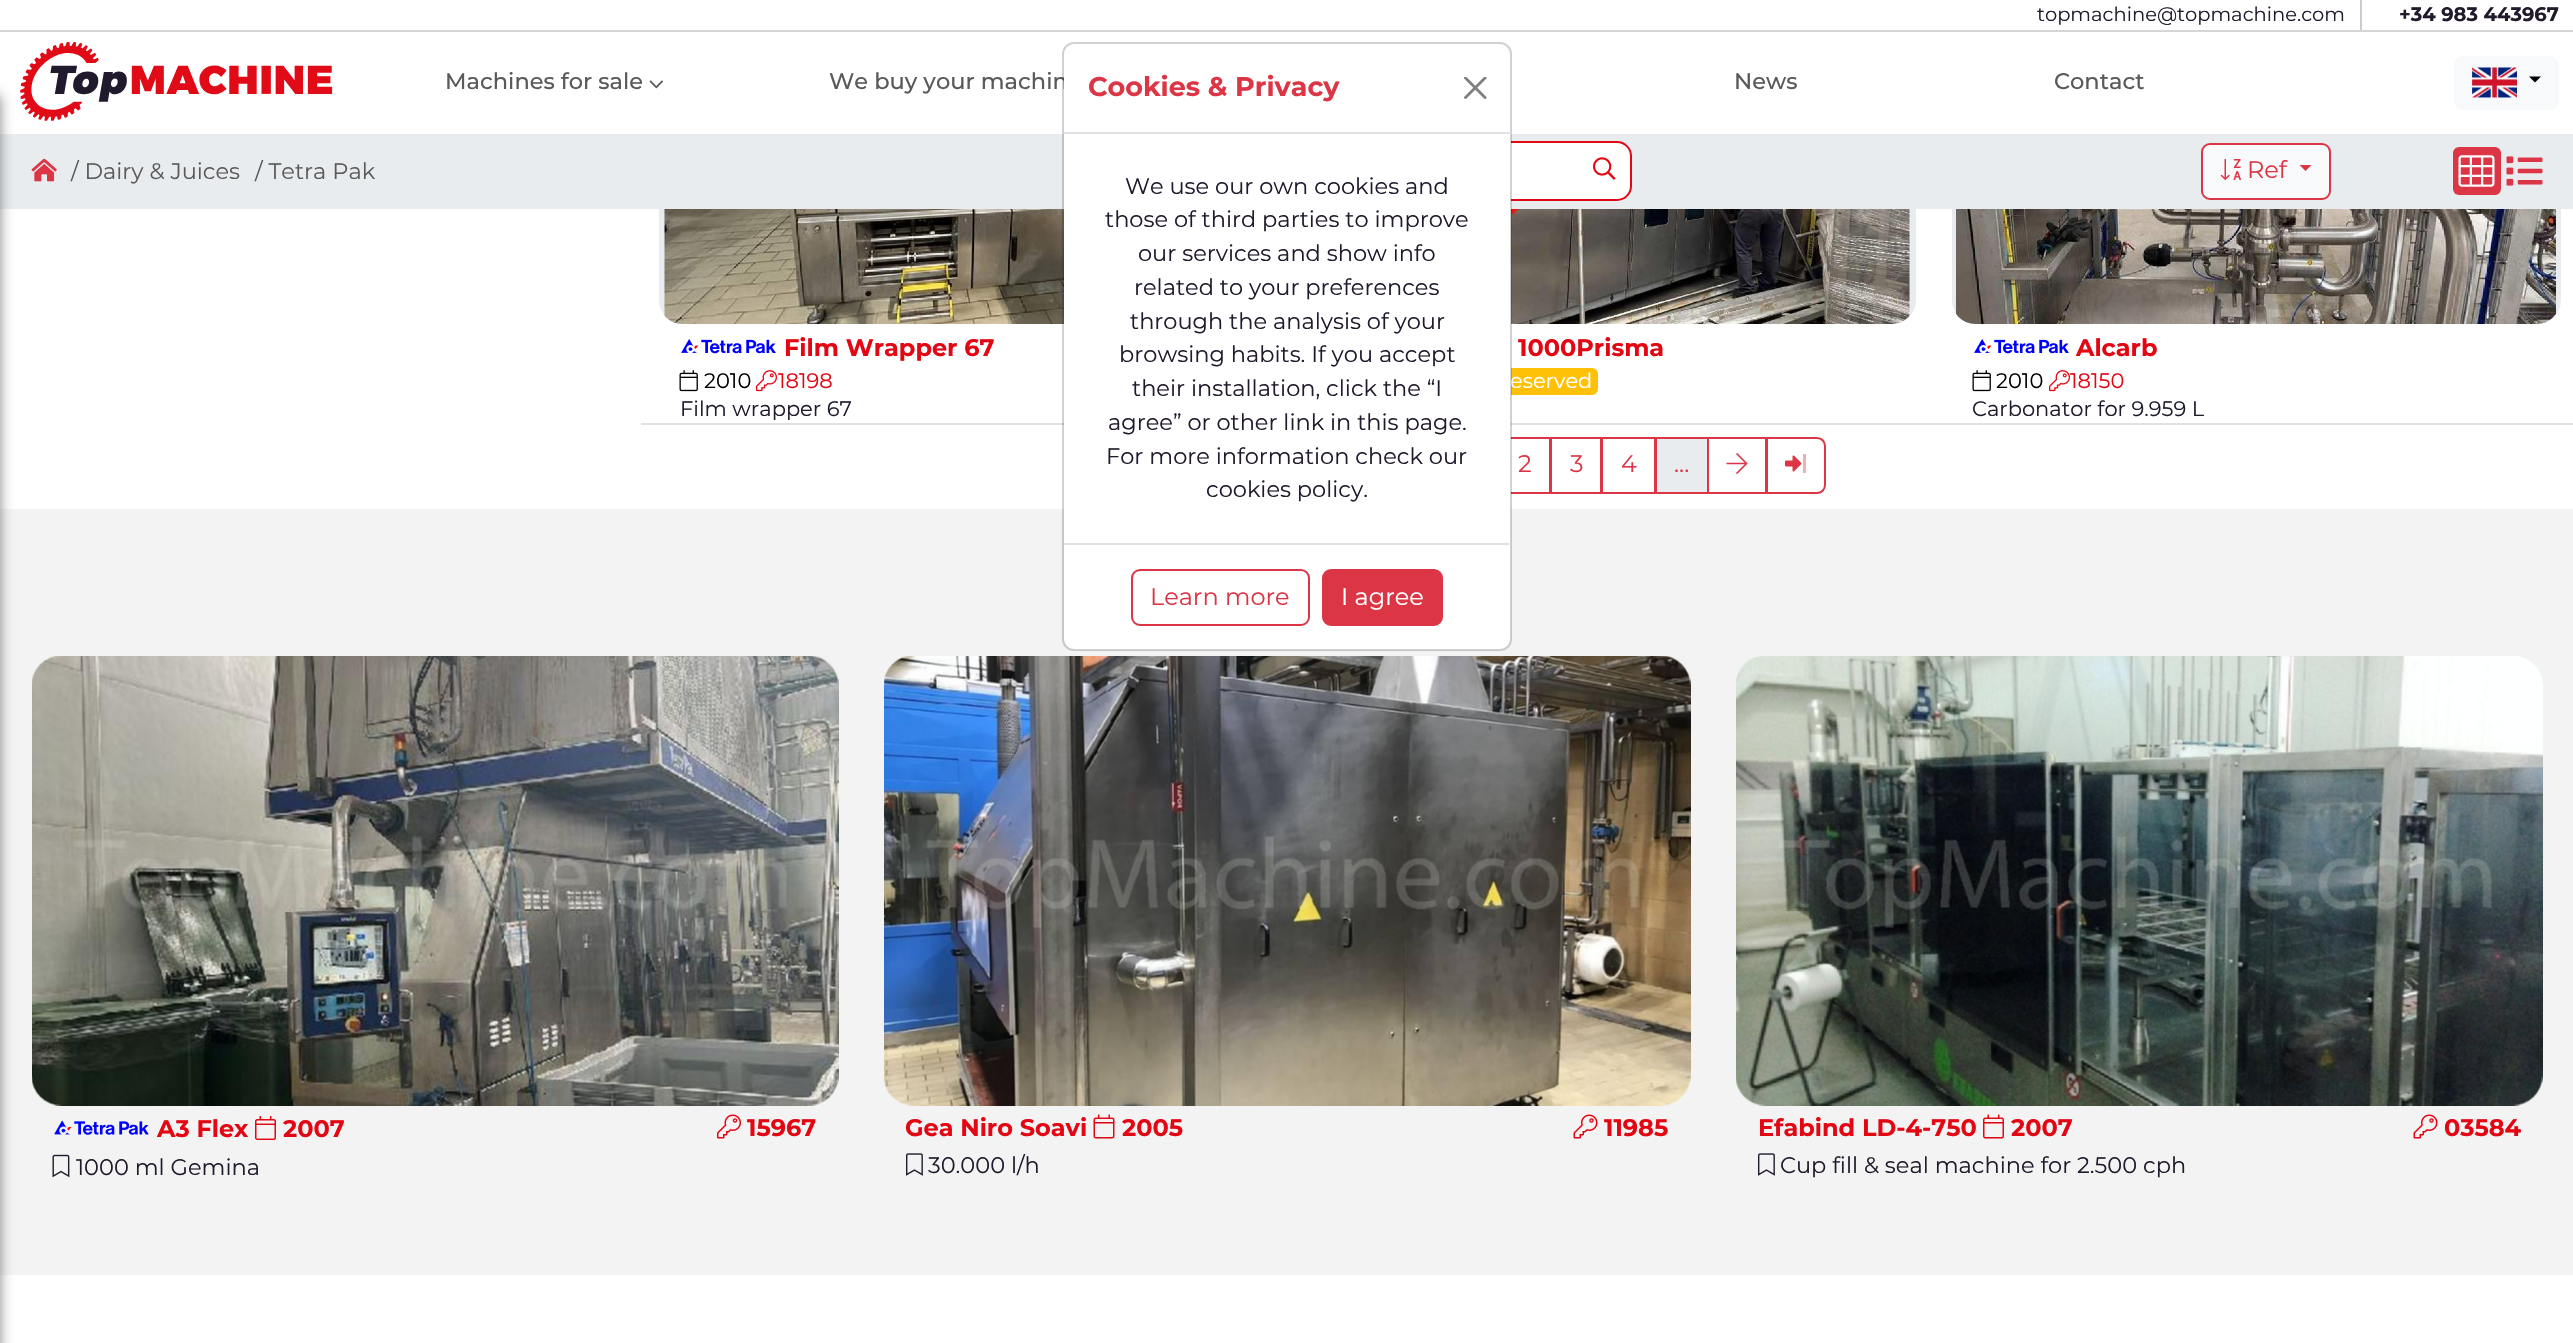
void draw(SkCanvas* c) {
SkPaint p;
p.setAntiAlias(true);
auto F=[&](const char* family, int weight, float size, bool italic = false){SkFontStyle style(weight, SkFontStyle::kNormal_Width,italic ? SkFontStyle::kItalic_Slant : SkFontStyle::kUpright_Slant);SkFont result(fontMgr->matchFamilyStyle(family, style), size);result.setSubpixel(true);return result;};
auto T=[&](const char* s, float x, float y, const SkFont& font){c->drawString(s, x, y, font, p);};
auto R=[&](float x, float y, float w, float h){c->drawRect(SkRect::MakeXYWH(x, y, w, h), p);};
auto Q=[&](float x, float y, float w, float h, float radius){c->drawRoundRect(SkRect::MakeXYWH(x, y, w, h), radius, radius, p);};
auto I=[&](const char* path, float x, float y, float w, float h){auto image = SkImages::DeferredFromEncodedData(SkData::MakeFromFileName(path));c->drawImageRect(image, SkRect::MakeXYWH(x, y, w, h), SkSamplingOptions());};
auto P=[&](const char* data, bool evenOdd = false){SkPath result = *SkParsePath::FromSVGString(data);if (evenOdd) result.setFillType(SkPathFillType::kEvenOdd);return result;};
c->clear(0xffffffff);
p.setColor(0xffe9ecef);
Q(659,-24,610,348,24);
Q(1305,-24,611,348,24);
Q(1952,-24,609,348,24);
p.setColor(0xffffffff);
R(659,0,1902,134);
p.setColor(0xffd6d6d6);
R(0,30,2573,2);
p.setColor(0xffcccccc);
R(2360,0,2,30);
auto f1 = F("Montserrat",400,19.5);
p.setColor(0xff211a2c);
T("topmachine@topmachine.com",2037,21,f1);
auto f2 = F("Montserrat",700,19.5);
T("+34 983 443967",2399,21,f2);
I("1.png",20,42,313,79);
auto f3 = F("Montserrat",500,22.5);
p.setColor(0xff5a5a5a);
T("Machines for sale",445,89,f3);
I("2.png",649,80,14,9);
T("We buy your machin",829,89,f3);
T("News",1734,89,f3);
T("Contact",2054,89,f3);
p.setColor(0xfff8f9fa);
Q(2454,56,105,54,9);
I("3.png",2472,67,45,31);
p.setColor(0xff000000);
c->drawPath(P("M2529 76.5h12l-6 6z"),p);
p.setColor(0xffe9ecef);
R(0,134,2573,75);
p.setColor(0xfff3f3f3);
R(0,509,2573,766);
p.setColor(0xff737373);
p.setMaskFilter(SkMaskFilter::MakeBlur(kNormal_SkBlurStyle, 7));
c->drawRect(SkRect::MakeXYWH(-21,96,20,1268),p);
p.setMaskFilter(nullptr);
I("4.png",31,158,26,24);
auto f4 = F("Montserrat",400,22.5);
p.setColor(0xff5a5a5a);
T("/ Dairy & Juices",71,179,f4);
T("/ Tetra Pak",255,179,f4);
p.setColor(0xffffffff);
c->drawRoundRect(SkRect::MakeXYWH(1093,142,538,58),14,14,p);
p.setStroke(true);
p.setStrokeWidth(2);
p.setColor(0xffe30613);
c->drawRoundRect(SkRect::MakeXYWH(1093,142,538,58),14,14,p);
I("5.png",1593,157,23,23);
p.setStroke(false);
p.setColor(0xfff8f9fa);
c->drawRoundRect(SkRect::MakeXYWH(2202,144,128,55),8,8,p);
p.setStroke(true);
p.setColor(0xffdc3545);
c->drawRoundRect(SkRect::MakeXYWH(2202,144,128,55),8,8,p);
I("6.png",2220,159,21,21);
auto f5 = F("Montserrat",400,24);
p.setStroke(false);
T("Ref",2247,178,f5);
c->drawPath(P("M2299.5 165h12l-6 6z"),p);
Q(2453,147,48,48,6);
I("7.png",2458,155,37,32);
I("8.png",2506,156,37,30);
p.setColor(0xffffc107);
Q(1488,368,110,27,6);
p.setStroke(true);
p.setColor(0xffdc3545);
c->drawRect(SkRect::MakeXYWH(1500,438,50,55),p);
p.setStroke(false);
p.setColor(0xffffffff);
Q(1064,44,447,606,11);
p.setColor(0xffdee2e6);
R(641,423,423,2);
I("10.png",664,209,400,115);
R(1511,423,1062,2);
I("14.png",1511,209,399,115);
auto f6 = F("Montserrat",400,21);
p.setColor(0xffffffff);
T("eserved",1510,388,f6);
p.setStroke(true);
p.setColor(0x2e000000);
c->drawRoundRect(SkRect::MakeXYWH(1063,43,448,607),11,11,p);
p.setStroke(false);
p.setColor(0xffdee2e6);
R(1064,132,447,2);
auto f7 = F("Montserrat",700,27);
p.setColor(0xffdc3545);
T("Cookies & Privacy",1088,96,f7);
I("9.png",1464,77,23,22);
p.setColor(0xff211a2c);
T("We use our own cookies and",1125,194,f4);
T("those of third parties to improve",1105,227,f4);
T("our services and show info",1138,261,f4);
T("related to your preferences",1134,295,f4);
T("through the analysis of your",1130,329,f4);
T("browsing habits. If you accept",1119,362,f4);
T("their installation, click the “I",1132,396,f4);
T("agree” or other link in this page.",1108,430,f4);
T("For more information check our",1106,464,f4);
T("cookies policy.",1206,497,f4);
p.setColor(0xffdee2e6);
R(1064,543,447,2);
p.setStroke(true);
p.setColor(0xffdc3545);
c->drawRoundRect(SkRect::MakeXYWH(1132,570,177,55),8,8,p);
p.setStroke(false);
T("Learn more",1150,605,f5);
c->drawRoundRect(SkRect::MakeXYWH(1323,570,119,55),8,8,p);
p.setStroke(true);
c->drawRoundRect(SkRect::MakeXYWH(1323,570,119,55),8,8,p);
p.setStroke(false);
p.setColor(0xffffffff);
T("I agree",1341,605,f5);
I("11.png",681,339,95,15);
auto f8 = F("Montserrat",700,24);
p.setColor(0xffe30613);
T("Film Wrapper 67",784,356,f8);
I("12.png",679,370,19,22);
p.setColor(0xff000000);
T("2010",704,388,f6);
I("13.png",756,370,21,22);
p.setColor(0xffe30613);
T("18198",778,388,f6);
p.setColor(0xff211a2c);
T("Film wrapper 67",680,416,f6);
p.setColor(0xffe30613);
T("1000Prisma",1518,356,f8);
I("15.png",1956,209,600,115);
I("11.png",1974,339,95,15);
T("Alcarb",2076,356,f8);
I("12.png",1972,370,19,22);
p.setColor(0xff000000);
T("2010",1996,388,f6);
I("13.png",2049,370,21,22);
p.setColor(0xffe30613);
T("18150",2070,388,f6);
p.setColor(0xff211a2c);
T("Carbonator for 9.959 L",1972,416,f6);
p.setColor(0xffdc3545);
T("2",1518,472,f5);
p.setStroke(true);
c->drawRect(SkRect::MakeXYWH(1551,438,50,55),p);
p.setStroke(false);
T("3",1570,472,f5);
p.setStroke(true);
c->drawRect(SkRect::MakeXYWH(1602,438,53,55),p);
p.setStroke(false);
T("4",1621,472,f5);
p.setColor(0xffe9ecef);
c->drawRect(SkRect::MakeXYWH(1656,438,52,55),p);
p.setStroke(true);
p.setColor(0xffdc3545);
c->drawRect(SkRect::MakeXYWH(1656,438,52,55),p);
p.setStroke(false);
T("...",1674,472,f5);
p.setStroke(true);
c->drawRect(SkRect::MakeXYWH(1708,438,58,55),p);
I("16.png",1726,453,22,21);
p.setStroke(false);
p.setColor(0xffffffff);
c->drawPath(P("M1767 438h50c4.5 0 8 3.5 8 8v39c0 4.5-3.5 8-8 8h-50z"),p);
p.setStroke(true);
p.setColor(0xffdc3545);
c->drawPath(P("M1767 438h50c4.5 0 8 3.5 8 8v39c0 4.5-3.5 8-8 8h-50z"),p);
I("17.png",1785,455,17,17);
p.setStroke(false);
p.setColor(0xfff1aeb5);
R(1803,454,3,19);
I("18.png",32,656,807,450);
I("19.png",54,1120,95,15);
p.setColor(0xffe30613);
T("A3 Flex",157,1137,f8);
I("20.png",255,1116,21,24);
T("2007",283,1137,f8);
I("21.png",717,1114,24,25);
T("15967",747,1136,f8);
I("22.png",52,1154,18,24);
p.setColor(0xff211a2c);
T("1000 ml Gemina",76,1175,f4);
I("23.png",884,656,807,450);
p.setColor(0xffe30613);
T("Gea Niro Soavi",905,1136,f8);
I("24.png",1093,1114,22,25);
T("2005",1122,1136,f8);
I("25.png",1573,1114,25,25);
T("11985",1604,1136,f8);
I("26.png",906,1153,17,23);
p.setColor(0xff211a2c);
T("30.000 l/h",928,1173,f4);
I("27.png",1736,656,807,450);
p.setColor(0xffe30613);
T("Efabind LD-4-750",1758,1136,f8);
I("28.png",1983,1114,21,25);
T("2007",2011,1136,f8);
I("25.png",2413,1114,25,25);
T("03584",2444,1136,f8);
I("26.png",1758,1153,17,23);
p.setColor(0xff211a2c);
T("Cup fill & seal machine for 2.500 cph",1780,1173,f4);
}
